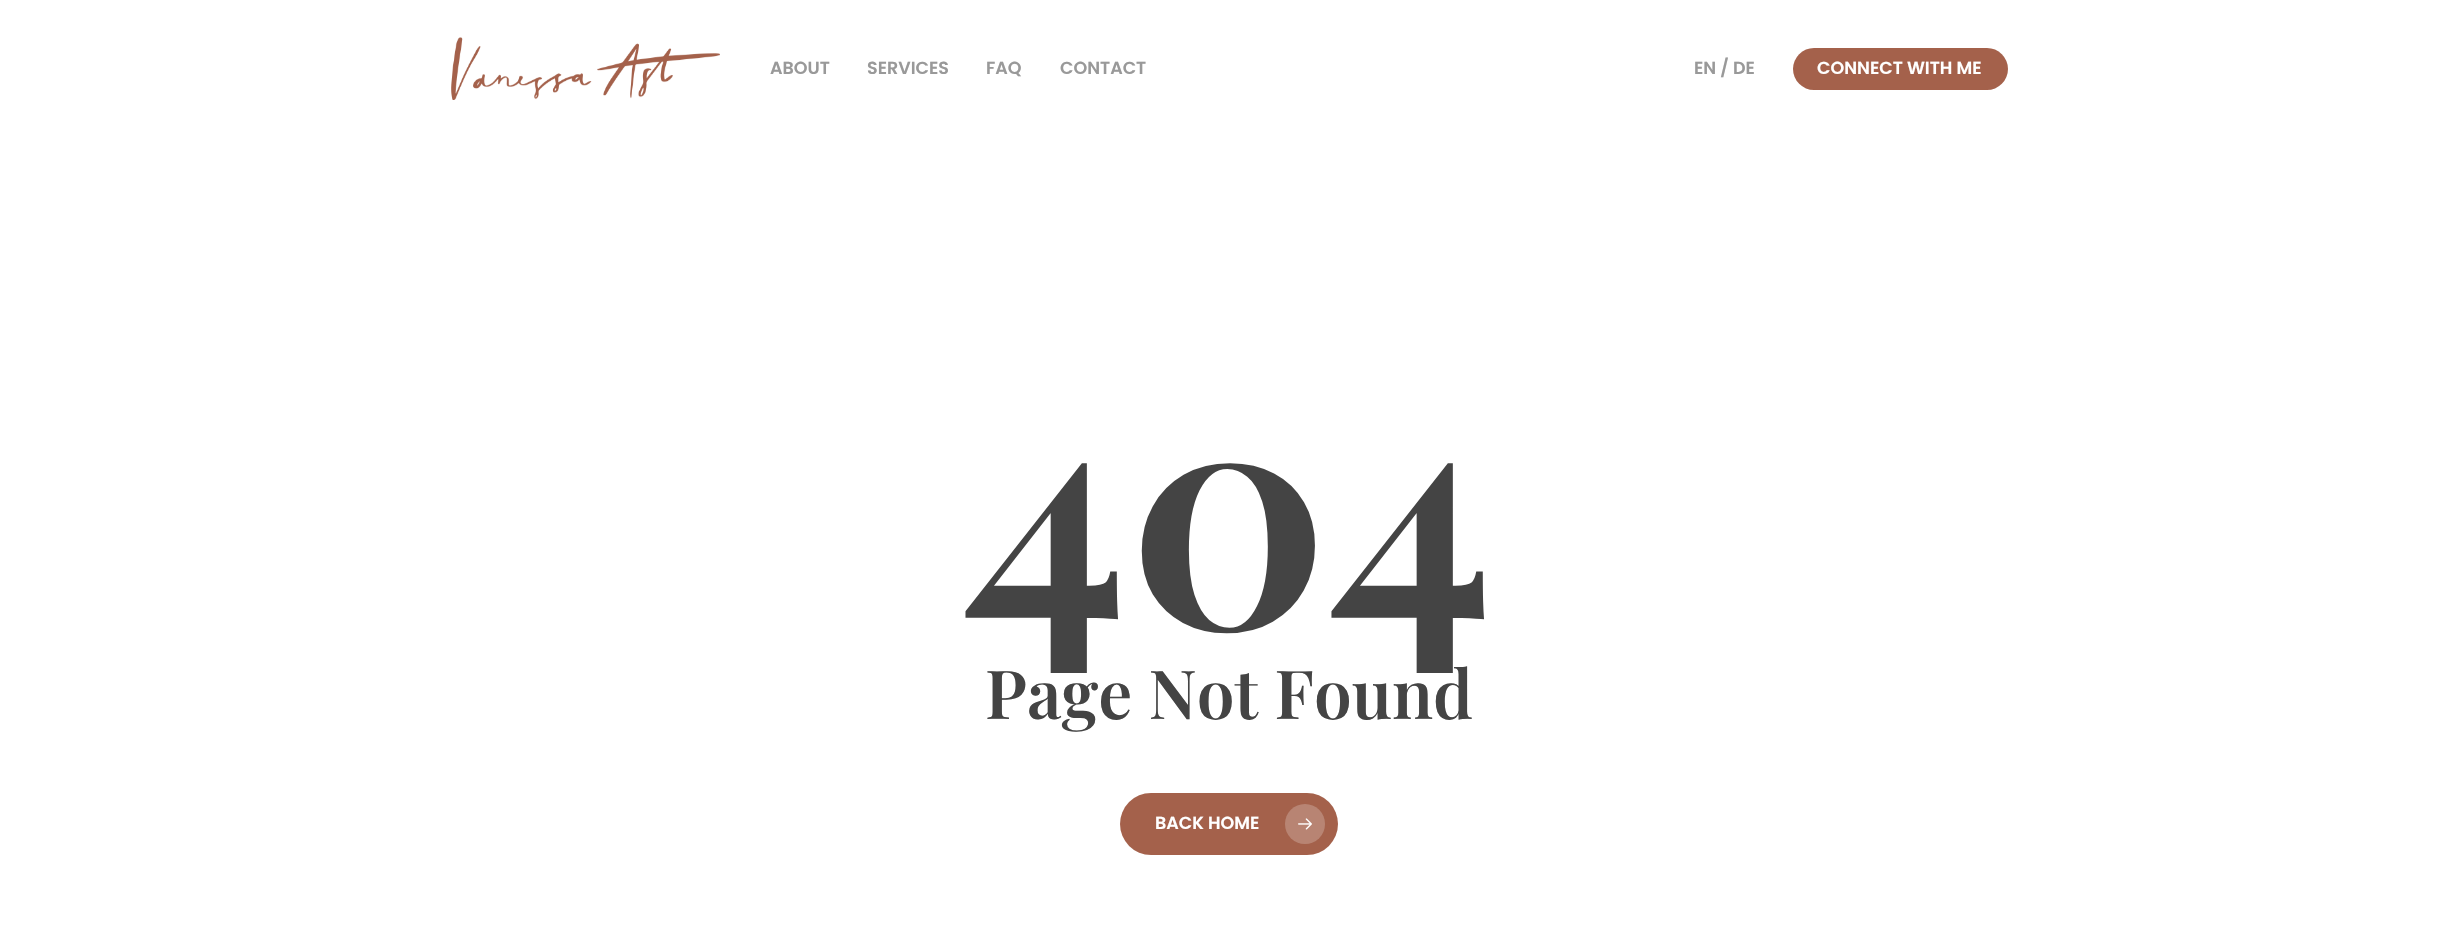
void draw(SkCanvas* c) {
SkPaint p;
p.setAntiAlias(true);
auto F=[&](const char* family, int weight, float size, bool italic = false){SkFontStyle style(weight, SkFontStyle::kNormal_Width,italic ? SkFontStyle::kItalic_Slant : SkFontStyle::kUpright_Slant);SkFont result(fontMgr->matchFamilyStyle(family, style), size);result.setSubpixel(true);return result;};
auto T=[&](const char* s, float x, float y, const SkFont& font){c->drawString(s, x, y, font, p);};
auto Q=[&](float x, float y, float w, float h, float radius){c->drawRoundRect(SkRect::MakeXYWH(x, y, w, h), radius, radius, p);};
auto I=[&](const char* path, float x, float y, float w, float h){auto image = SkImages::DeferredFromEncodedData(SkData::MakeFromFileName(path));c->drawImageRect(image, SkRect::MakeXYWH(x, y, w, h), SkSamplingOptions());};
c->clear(0xffffffff);
I("1.png",451,37,269,63);
auto f1 = F("Poppins",600,17.5);
p.setColor(0xff999999);
T("ABOUT",770,74,f1);
T("SERVICES",867,74,f1);
T("FAQ",986,74,f1);
T("CONTACT",1060,74,f1);
T("EN / DE",1694,74,f1);
p.setColor(0xffa4614b);
Q(1793,48,215,42,21);
p.setColor(0xffffffff);
T("CONNECT WITH ME",1817,74,f1);
auto f2 = F("Playfair Display",700,312);
p.setColor(0xff444444);
T("404",963,629,f2);
auto f3 = F("Playfair Display",600,67.5);
T("Page Not Found",985,719,f3);
p.setColor(0xffa4614b);
Q(1120,793,218,62,31);
p.setColor(0xffffffff);
T("BACK HOME",1155,829,f1);
p.setColor(0xffb88473);
c->drawCircle(1305,824,20,p);
I("2.png",1298,818,14,12);
}
